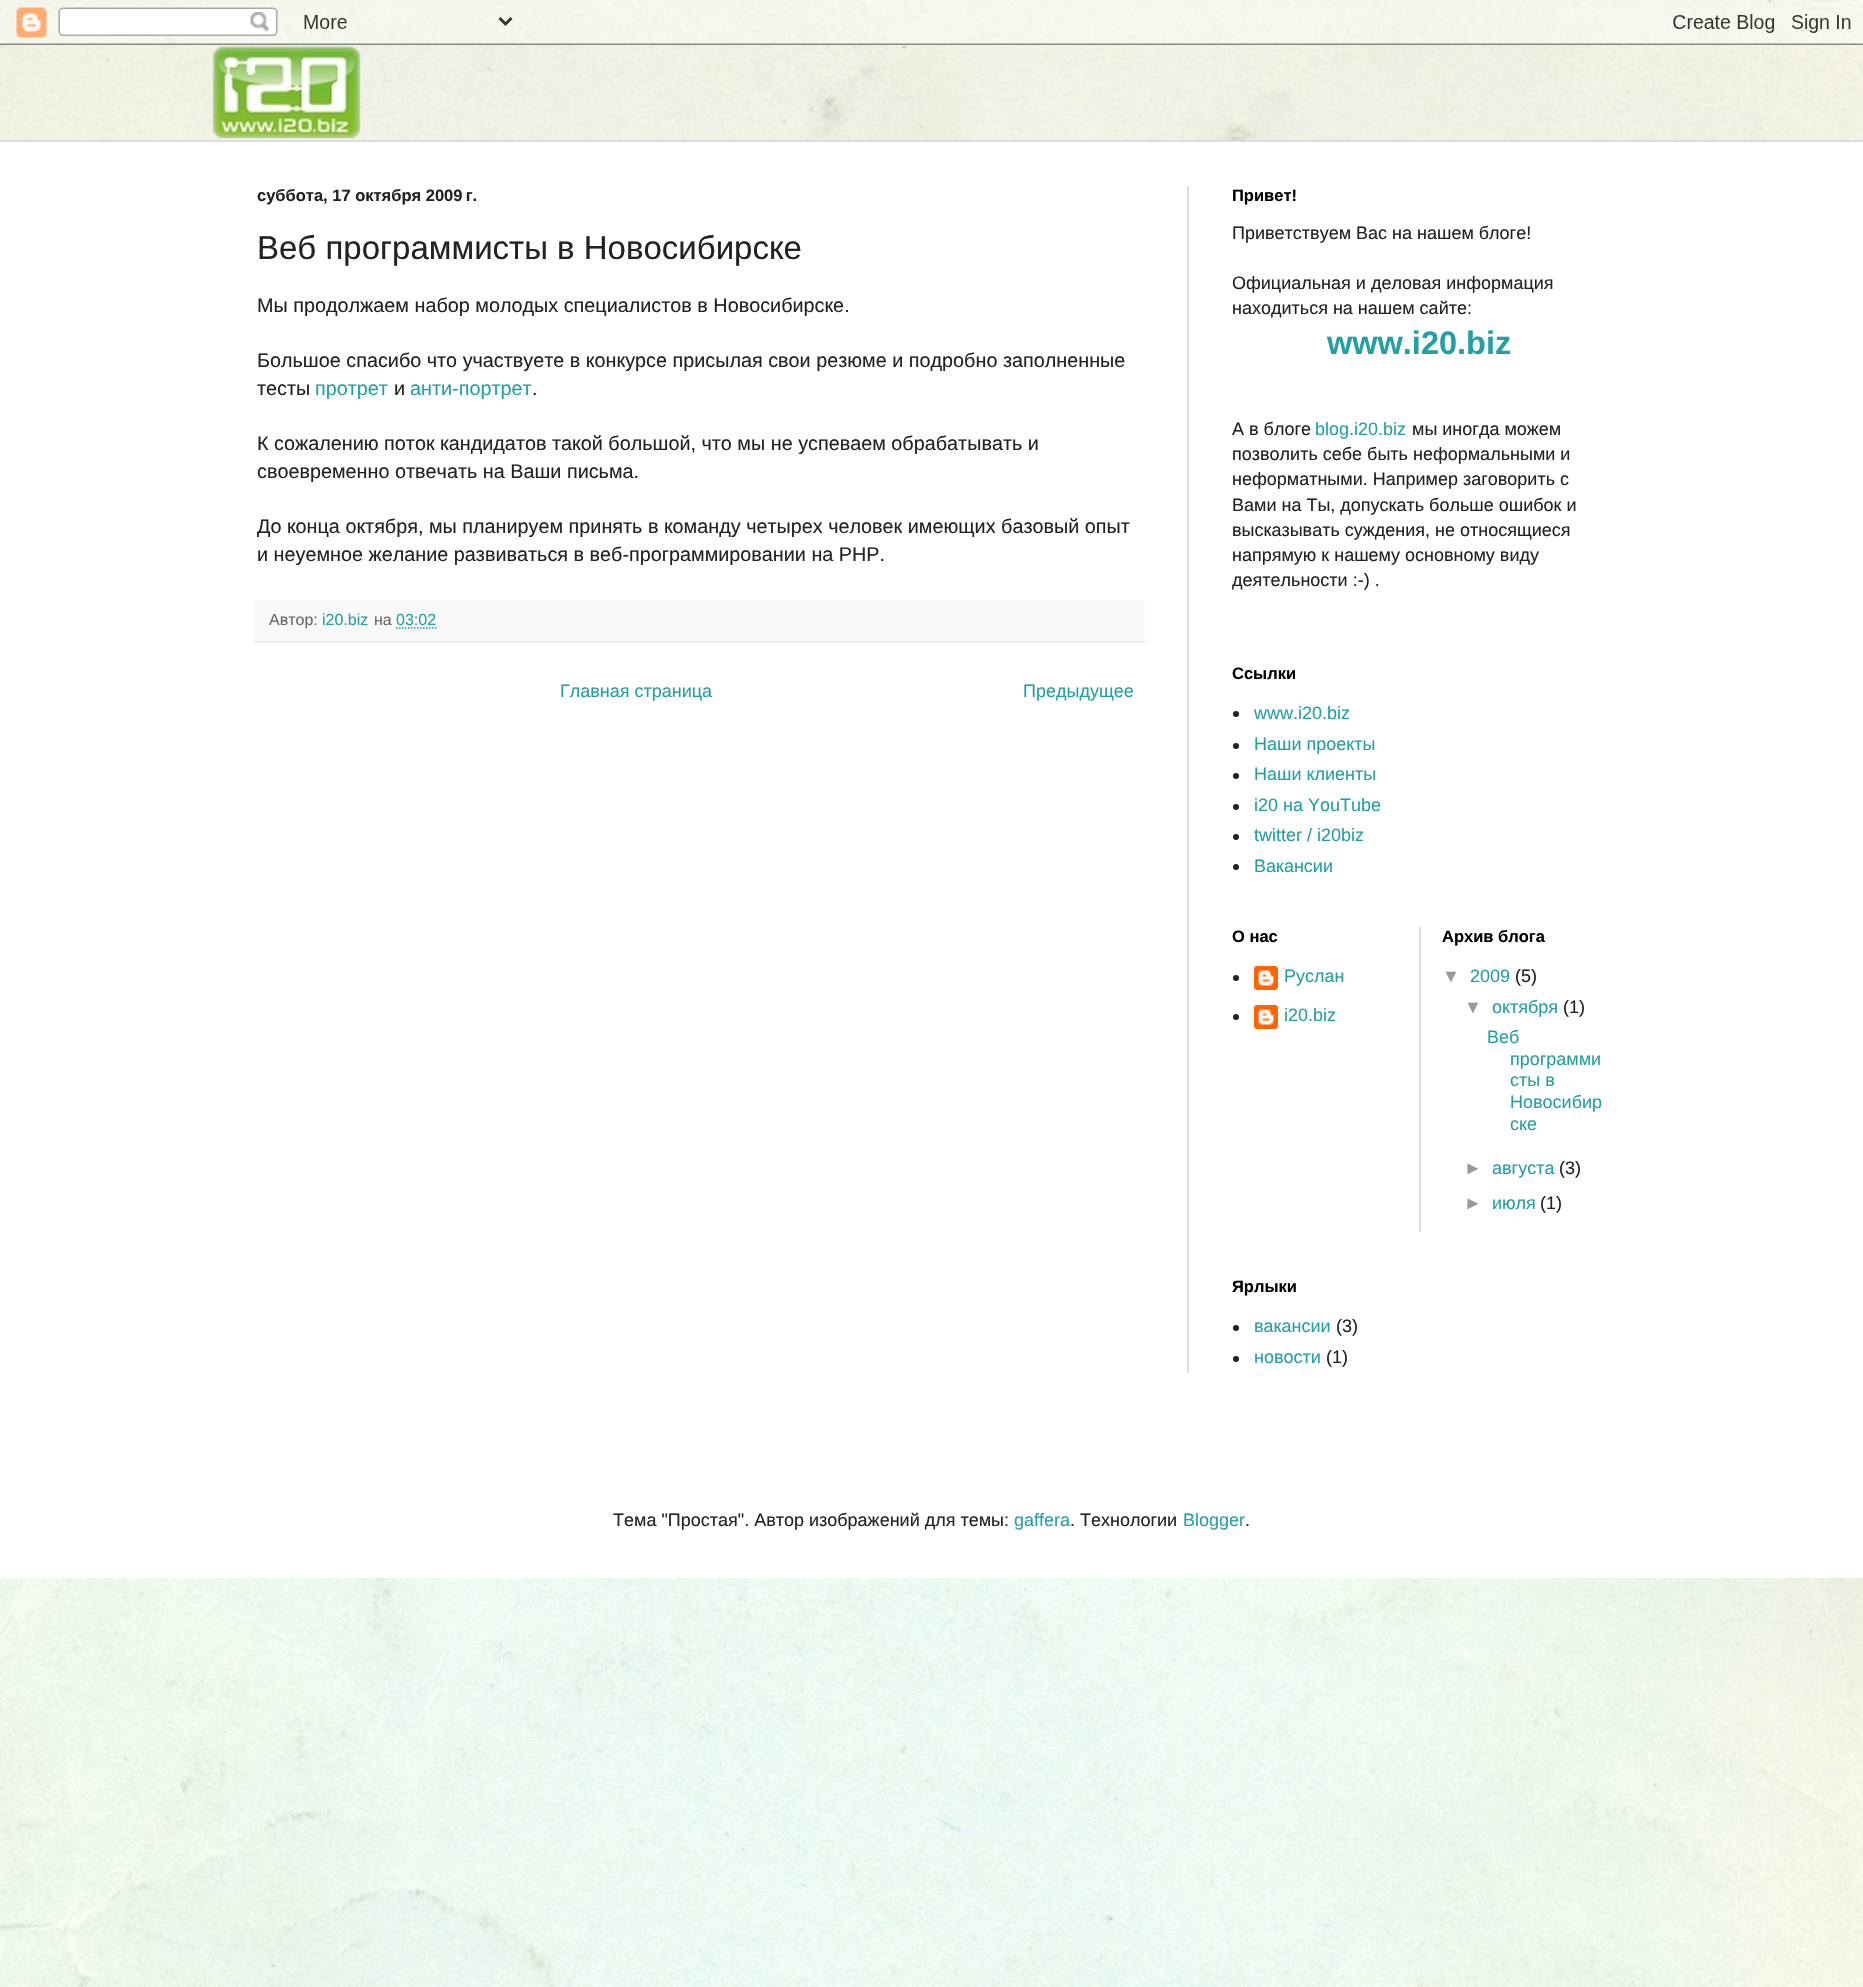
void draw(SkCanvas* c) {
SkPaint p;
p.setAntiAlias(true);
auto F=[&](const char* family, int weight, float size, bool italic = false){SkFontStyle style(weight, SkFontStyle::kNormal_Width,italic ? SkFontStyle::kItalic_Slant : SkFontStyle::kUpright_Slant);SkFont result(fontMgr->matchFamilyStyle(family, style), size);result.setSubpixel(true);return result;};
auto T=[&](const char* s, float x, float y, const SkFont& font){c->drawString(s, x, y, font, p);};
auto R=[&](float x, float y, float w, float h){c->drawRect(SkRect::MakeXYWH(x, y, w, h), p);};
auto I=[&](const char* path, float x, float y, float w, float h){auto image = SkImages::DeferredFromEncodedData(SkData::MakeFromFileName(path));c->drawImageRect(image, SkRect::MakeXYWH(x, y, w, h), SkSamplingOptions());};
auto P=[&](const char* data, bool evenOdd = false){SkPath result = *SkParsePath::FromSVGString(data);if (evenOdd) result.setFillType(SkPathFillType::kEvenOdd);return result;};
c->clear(0xffffffff);
I("1.png",0,0,1863,1987);
I("2.png",0,0,1863,140);
I("3.png",0,0,1863,45);
I("4.png",212,46,149,93);
p.setColor(0xffffffff);
R(0,142,1863,1436);
p.setColor(0xffdddddd);
R(0,140,1863,2);
R(1187,186,2,1187);
auto f1 = F("Liberation Sans",700,16.5);
p.setColor(0xff222222);
T("суббота, 17 октября 2009 г.",257,201,f1);
auto f2 = F("Liberation Sans",400,33);
T("Веб программисты в Новосибирске",257,259,f2);
auto f3 = F("Liberation Sans",400,19.8);
T("Мы продолжаем набор молодых специалистов в Новосибирске.",257,312,f3);
T("Большое спасибо что участвуете в конкурсе присылая свои резюме и подробно заполненные",257,367,f3);
T("тесты",257,395,f3);
p.setColor(0xff249fa3);
T("протрет",315,395,f3);
p.setColor(0xff222222);
T("и",394,395,f3);
p.setColor(0xff249fa3);
T("анти-портрет",410,395,f3);
p.setColor(0xff222222);
T(".",532,395,f3);
T("К сожалению поток кандидатов такой большой, что мы не успеваем обрабатывать и",257,450,f3);
T("своевременно отвечать на Ваши письма.",257,478,f3);
T("До конца октября, мы планируем принять в команду четырех человек имеющих базовый опыт",257,533,f3);
T("и неуемное желание развиваться в веб-программировании на PHP.",257,561,f3);
p.setColor(0xfff9f9f9);
R(254,600,891,41);
p.setColor(0xffeeeeee);
R(254,641,891,2);
auto f4 = F("Liberation Sans",400,16);
p.setColor(0xff666666);
T("Автор:",269,625,f4);
p.setColor(0xff249fa3);
T("i20.biz",322,625,f4);
p.setColor(0xff666666);
T("на",374,625,f4);
p.setColor(0xff249fa3);
T("03:02",396,625,f4);
p.setStroke(true);
p.setStrokeWidth(1.5);
p.setPathEffect(SkDashPathEffect::Make({{1.5f,1.5f}}, 0));
c->drawPath(P("M396 628h40.5"),p);
p.setPathEffect(nullptr);
auto f5 = F("Liberation Sans",400,18);
p.setStroke(false);
T("Главная страница",560,697,f5);
T("Предыдущее",1023,697,f5);
p.setColor(0xff000000);
T("Привет!",1232,201,f1);
p.setColor(0xff222222);
T("Приветствуем Вас на нашем блоге!",1232,239,f5);
T("Официальная и деловая информация",1232,289,f5);
T("находиться на нашем сайте:",1232,314,f5);
auto f6 = F("Liberation Sans",700,32.5);
p.setColor(0xff249fa3);
T("www.i20.biz",1327,354,f6);
p.setColor(0xff222222);
T("А в блоге",1232,435,f5);
p.setColor(0xff249fa3);
T("blog.i20.biz",1315,435,f5);
p.setColor(0xff222222);
T("мы иногда можем",1412,435,f5);
T("позволить себе быть неформальными и",1232,460,f5);
T("неформатными. Например заговорить с",1232,485,f5);
T("Вами на Ты, допускать больше ошибок и",1232,511,f5);
T("высказывать суждения, не относящиеся",1232,536,f5);
T("напрямую к нашему основному виду",1232,561,f5);
T("деятельности :-) .",1232,586,f5);
p.setColor(0xff000000);
T("Ссылки",1232,679,f1);
p.setColor(0xff222222);
c->drawCircle(1236,714,3,p);
p.setColor(0xff249fa3);
T("www.i20.biz",1254,719,f5);
p.setColor(0xff222222);
c->drawCircle(1236,746,3,p);
p.setColor(0xff249fa3);
T("Наши проекты",1254,750,f5);
p.setColor(0xff222222);
c->drawCircle(1236,776,3,p);
p.setColor(0xff249fa3);
T("Наши клиенты",1254,780,f5);
p.setColor(0xff222222);
c->drawCircle(1236,807,3,p);
p.setColor(0xff249fa3);
T("i20 на YouTube",1254,811,f5);
p.setColor(0xff222222);
c->drawCircle(1236,837,3,p);
p.setColor(0xff249fa3);
T("twitter / i20biz",1254,841,f5);
p.setColor(0xff222222);
c->drawCircle(1236,867,3,p);
p.setColor(0xff249fa3);
T("Вакансии",1254,872,f5);
p.setColor(0xff000000);
T("О нас",1232,942,f1);
p.setColor(0xff222222);
c->drawCircle(1236,978,3,p);
I("5.png",1254,966,24,24);
p.setColor(0xff249fa3);
T("Руслан",1284,982,f5);
p.setColor(0xff222222);
c->drawCircle(1236,1017,3,p);
I("5.png",1254,1005,24,24);
p.setColor(0xff249fa3);
T("i20.biz",1284,1021,f5);
p.setColor(0xffdddddd);
R(1419,927,2,305);
p.setColor(0xff000000);
T("Архив блога",1442,942,f1);
p.setColor(0xff999999);
T("▼",1442,982,f5);
p.setColor(0xff249fa3);
T("2009",1470,982,f5);
p.setColor(0xff222222);
T("(5)",1515,982,f5);
p.setColor(0xff999999);
T("▼",1464,1013,f5);
p.setColor(0xff249fa3);
T("октября",1492,1013,f5);
p.setColor(0xff222222);
T("(1)",1563,1013,f5);
p.setColor(0xff249fa3);
T("Веб",1487,1043,f5);
T("программи",1510,1065,f5);
T("сты в",1510,1086,f5);
T("Новосибир",1510,1108,f5);
T("ске",1510,1130,f5);
p.setColor(0xff999999);
T("►",1464,1174,f5);
p.setColor(0xff249fa3);
T("августа",1492,1174,f5);
p.setColor(0xff222222);
T("(3)",1559,1174,f5);
p.setColor(0xff999999);
T("►",1464,1209,f5);
p.setColor(0xff249fa3);
T("июля",1492,1209,f5);
p.setColor(0xff222222);
T("(1)",1540,1209,f5);
p.setColor(0xff000000);
T("Ярлыки",1232,1292,f1);
p.setColor(0xff222222);
c->drawCircle(1236,1328,3,p);
p.setColor(0xff249fa3);
T("вакансии",1254,1332,f5);
p.setColor(0xff222222);
T("(3)",1336,1332,f5);
c->drawCircle(1236,1359,3,p);
p.setColor(0xff249fa3);
T("новости",1254,1363,f5);
p.setColor(0xff222222);
T("(1)",1326,1363,f5);
T("Тема \"Простая\". Автор изображений для темы:",613,1526,f5);
p.setColor(0xff249fa3);
T("gaffera",1014,1526,f5);
p.setColor(0xff222222);
T(". Технологии",1070,1526,f5);
p.setColor(0xff249fa3);
T("Blogger",1183,1526,f5);
p.setColor(0xff222222);
T(".",1245,1526,f5);
}
